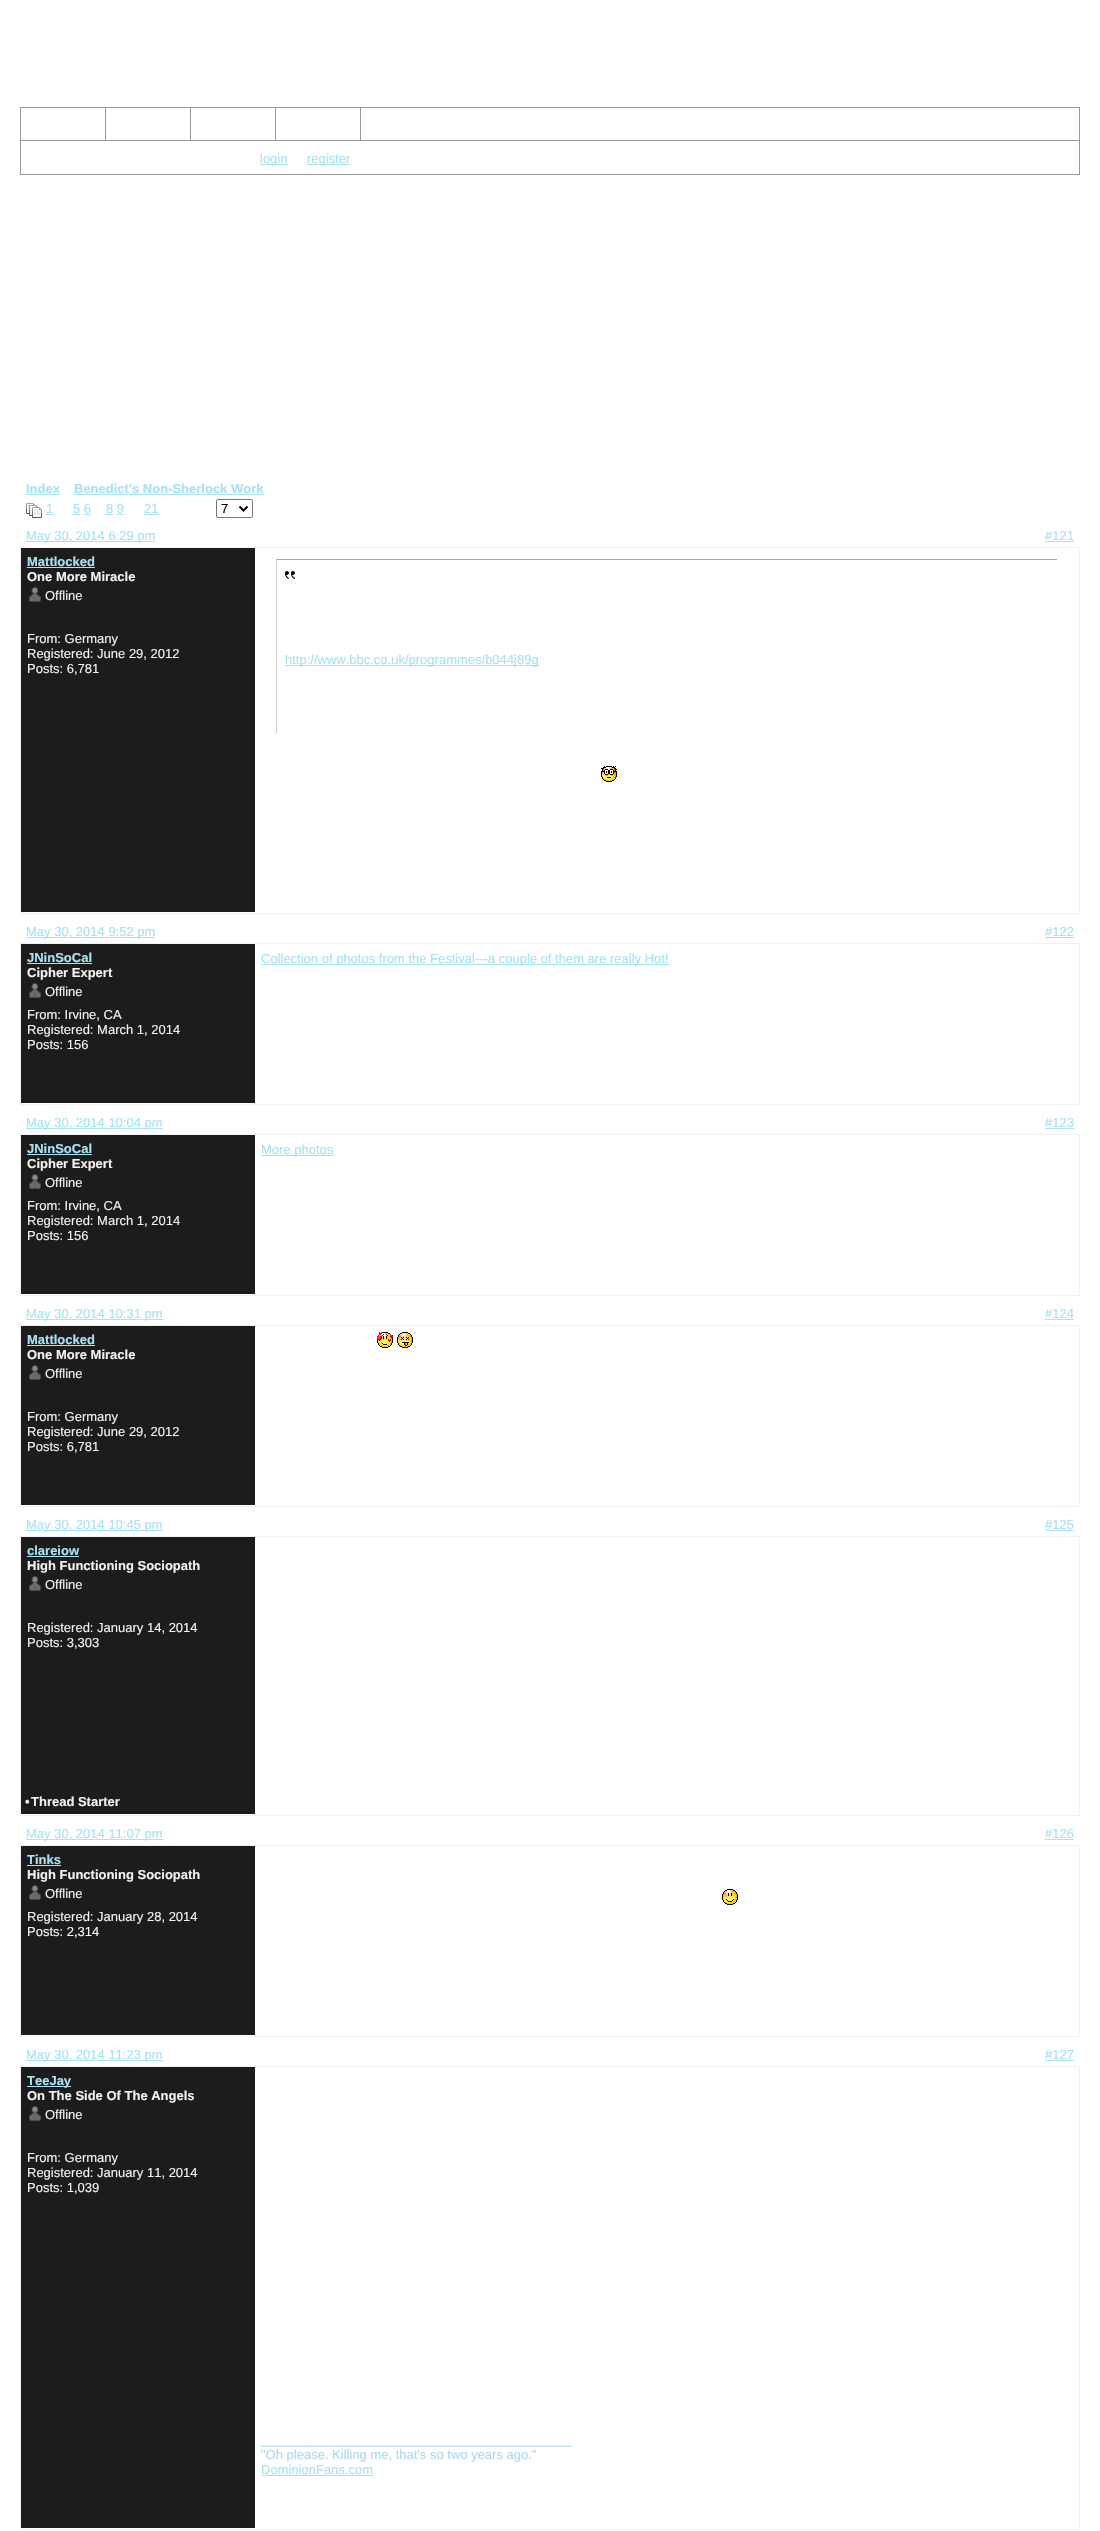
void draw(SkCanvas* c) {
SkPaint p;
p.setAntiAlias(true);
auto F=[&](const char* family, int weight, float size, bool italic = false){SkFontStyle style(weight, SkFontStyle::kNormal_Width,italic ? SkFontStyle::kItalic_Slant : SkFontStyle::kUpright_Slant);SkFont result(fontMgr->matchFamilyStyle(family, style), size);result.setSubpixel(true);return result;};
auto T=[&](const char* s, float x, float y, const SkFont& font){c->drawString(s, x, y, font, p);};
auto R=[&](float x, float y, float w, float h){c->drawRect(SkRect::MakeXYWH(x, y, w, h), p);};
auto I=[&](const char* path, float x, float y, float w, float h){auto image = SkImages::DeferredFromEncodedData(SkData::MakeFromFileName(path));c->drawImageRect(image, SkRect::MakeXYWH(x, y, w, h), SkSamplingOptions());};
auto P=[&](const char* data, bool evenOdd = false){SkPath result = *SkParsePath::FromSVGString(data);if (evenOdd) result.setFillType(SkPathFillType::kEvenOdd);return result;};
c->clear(0xffffffff);
p.setStroke(true);
p.setStrokeWidth(1);
p.setColor(0xff999999);
c->drawRect(SkRect::MakeXYWH(20.5,107.5,1059,67),p);
p.setStroke(false);
R(21,140,1058,1);
R(105,108,1,32);
R(190,108,1,32);
R(275,108,1,32);
R(360,108,1,32);
p.setColor(0xffa9e2f3);
R(260,164,28,1);
auto f1 = F("Liberation Sans",400,13);
T("login",260,163,f1);
R(307,164,43,1);
T("register",307,163,f1);
auto f2 = F("Liberation Sans",700,13);
T("Index",26,493,f2);
R(26,494,34,1);
T("Benedict's Non-Sherlock Work",74,493,f2);
R(74,494,190,1);
I("1.png",26,503,16,15);
T("1",46,513,f1);
R(46,514,7,1);
T("5 6",73,513,f1);
R(73,514,7,1);
T("8 9",106,513,f1);
R(106,514,7,1);
T("21",144,513,f1);
R(144,514,14,1);
p.setStroke(true);
p.setColor(0xff767676);
c->drawRoundRect(SkRect::MakeXYWH(216.5,499.5,36,18),1.5,1.5,p);
p.setStrokeWidth(2);
p.setColor(0xff000000);
c->drawPath(P("M239.5 506.5l4 4l4-4"),p);
p.setStroke(false);
T("7",221,513,f1);
p.setColor(0xffa9e2f3);
R(84,514,7,1);
R(117,514,7,1);
R(26,541,129,1);
T("May 30, 2014 6:29 pm",26,540,f1);
T("#121",1045,540,f1);
R(1045,541,29,1);
p.setStroke(true);
p.setStrokeWidth(1);
p.setColor(0xfff1f1f1);
c->drawRect(SkRect::MakeXYWH(20.5,547.5,1059,366),p);
p.setStroke(false);
p.setColor(0xff1c1c1c);
R(21,548,234,364);
p.setColor(0xffa9e2f3);
T("Mattlocked",27,566,f2);
R(27,567,68,1);
p.setColor(0xfff2f2f2);
T("One More Miracle",27,581,f2);
I("2.png",29,587,12,15);
T("Offline",45,600,f1);
T("From: Germany",27,643,f1);
T("Registered: June 29, 2012",27,658,f1);
T("Posts: 6,781",27,673,f1);
p.setColor(0xffaca899);
R(276,559,782,1);
p.setColor(0xffffffff);
R(1057,559,1,1);
p.setColor(0xffcccccc);
R(276,559,1,174);
I("3.png",285,571,10,8);
p.setColor(0xffa9e2f3);
R(285,665,254,1);
T("http://www.bbc.co.uk/programmes/b044j89g",285,664,f1);
I("4.png",601,766,16,16);
R(26,937,129,1);
T("May 30, 2014 9:52 pm",26,936,f1);
T("#122",1045,936,f1);
R(1045,937,29,1);
p.setStroke(true);
p.setColor(0xfff1f1f1);
c->drawRect(SkRect::MakeXYWH(20.5,943.5,1059,161),p);
p.setStroke(false);
p.setColor(0xff1c1c1c);
R(21,944,234,159);
p.setColor(0xffa9e2f3);
T("JNinSoCal",27,962,f2);
R(27,963,65,1);
p.setColor(0xfff2f2f2);
T("Cipher Expert",27,977,f2);
I("2.png",29,983,12,15);
T("Offline",45,996,f1);
T("From: Irvine, CA",27,1019,f1);
T("Registered: March 1, 2014",27,1034,f1);
T("Posts: 156",27,1049,f1);
p.setColor(0xffa9e2f3);
R(261,964,408,1);
T("Collection of photos from the Festival---a couple of them are really Hot!",261,963,f1);
R(26,1128,137,1);
T("May 30, 2014 10:04 pm",26,1127,f1);
T("#123",1045,1127,f1);
R(1045,1128,29,1);
p.setStroke(true);
p.setColor(0xfff1f1f1);
c->drawRect(SkRect::MakeXYWH(20.5,1134.5,1059,161),p);
p.setStroke(false);
p.setColor(0xff1c1c1c);
R(21,1135,234,159);
p.setColor(0xffa9e2f3);
T("JNinSoCal",27,1153,f2);
R(27,1154,65,1);
p.setColor(0xfff2f2f2);
T("Cipher Expert",27,1168,f2);
I("2.png",29,1174,12,15);
T("Offline",45,1187,f1);
T("From: Irvine, CA",27,1210,f1);
T("Registered: March 1, 2014",27,1225,f1);
T("Posts: 156",27,1240,f1);
p.setColor(0xffa9e2f3);
R(261,1155,72,1);
T("More photos",261,1154,f1);
R(26,1319,137,1);
T("May 30, 2014 10:31 pm",26,1318,f1);
T("#124",1045,1318,f1);
R(1045,1319,29,1);
p.setStroke(true);
p.setColor(0xfff1f1f1);
c->drawRect(SkRect::MakeXYWH(20.5,1325.5,1059,181),p);
p.setStroke(false);
p.setColor(0xff1c1c1c);
R(21,1326,234,179);
I("5.png",377,1332,16,16);
I("6.png",397,1332,16,16);
p.setColor(0xffa9e2f3);
T("Mattlocked",27,1344,f2);
R(27,1345,68,1);
p.setColor(0xfff2f2f2);
T("One More Miracle",27,1359,f2);
I("2.png",29,1365,12,15);
T("Offline",45,1378,f1);
T("From: Germany",27,1421,f1);
T("Registered: June 29, 2012",27,1436,f1);
T("Posts: 6,781",27,1451,f1);
p.setColor(0xffa9e2f3);
R(26,1530,137,1);
T("May 30, 2014 10:45 pm",26,1529,f1);
T("#125",1045,1529,f1);
R(1045,1530,29,1);
p.setStroke(true);
p.setColor(0xfff1f1f1);
c->drawRect(SkRect::MakeXYWH(20.5,1536.5,1059,279),p);
p.setStroke(false);
p.setColor(0xff1c1c1c);
R(21,1537,234,277);
p.setColor(0xffa9e2f3);
T("clareiow",27,1555,f2);
R(27,1556,52,1);
p.setColor(0xfff2f2f2);
T("High Functioning Sociopath",27,1570,f2);
I("2.png",29,1576,12,15);
T("Offline",45,1589,f1);
T("Registered: January 14, 2014",27,1632,f1);
T("Posts: 3,303",27,1647,f1);
T("•",25,1806,f2);
T("Thread Starter",31,1806,f2);
p.setColor(0xffa9e2f3);
R(26,1839,137,1);
T("May 30, 2014 11:07 pm",26,1838,f1);
T("#126",1045,1838,f1);
R(1045,1839,29,1);
p.setStroke(true);
p.setColor(0xfff1f1f1);
c->drawRect(SkRect::MakeXYWH(20.5,1845.5,1059,191),p);
p.setStroke(false);
p.setColor(0xff1c1c1c);
R(21,1846,234,189);
I("7.png",722,1889,16,16);
p.setColor(0xffa9e2f3);
T("Tinks",27,1864,f2);
R(27,1865,34,1);
p.setColor(0xfff2f2f2);
T("High Functioning Sociopath",27,1879,f2);
I("2.png",29,1885,12,15);
T("Offline",45,1898,f1);
T("Registered: January 28, 2014",27,1921,f1);
T("Posts: 2,314",27,1936,f1);
p.setColor(0xffa9e2f3);
R(26,2060,137,1);
T("May 30, 2014 11:23 pm",26,2059,f1);
T("#127",1045,2059,f1);
R(1045,2060,29,1);
p.setStroke(true);
p.setColor(0xfff1f1f1);
c->drawRect(SkRect::MakeXYWH(20.5,2066.5,1059,463),p);
p.setStroke(false);
p.setColor(0xff1c1c1c);
R(21,2067,234,461);
p.setColor(0xffa9e2f3);
R(27,2086,44,1);
T("TeeJay",27,2085,f2);
p.setColor(0xfff2f2f2);
T("On The Side Of The Angels",27,2100,f2);
I("2.png",29,2106,12,15);
T("Offline",45,2119,f1);
T("From: Germany",27,2162,f1);
T("Registered: January 11, 2014",27,2177,f1);
T("Posts: 1,039",27,2192,f1);
p.setColor(0xffadd8e6);
T("___________________________________________",261,2444,f1);
T("\"Oh please. Killing me, that's so two years ago.\"",261,2459,f1);
p.setColor(0xffa9e2f3);
T("DominionFans.com",261,2474,f1);
R(261,2475,112,1);
}
